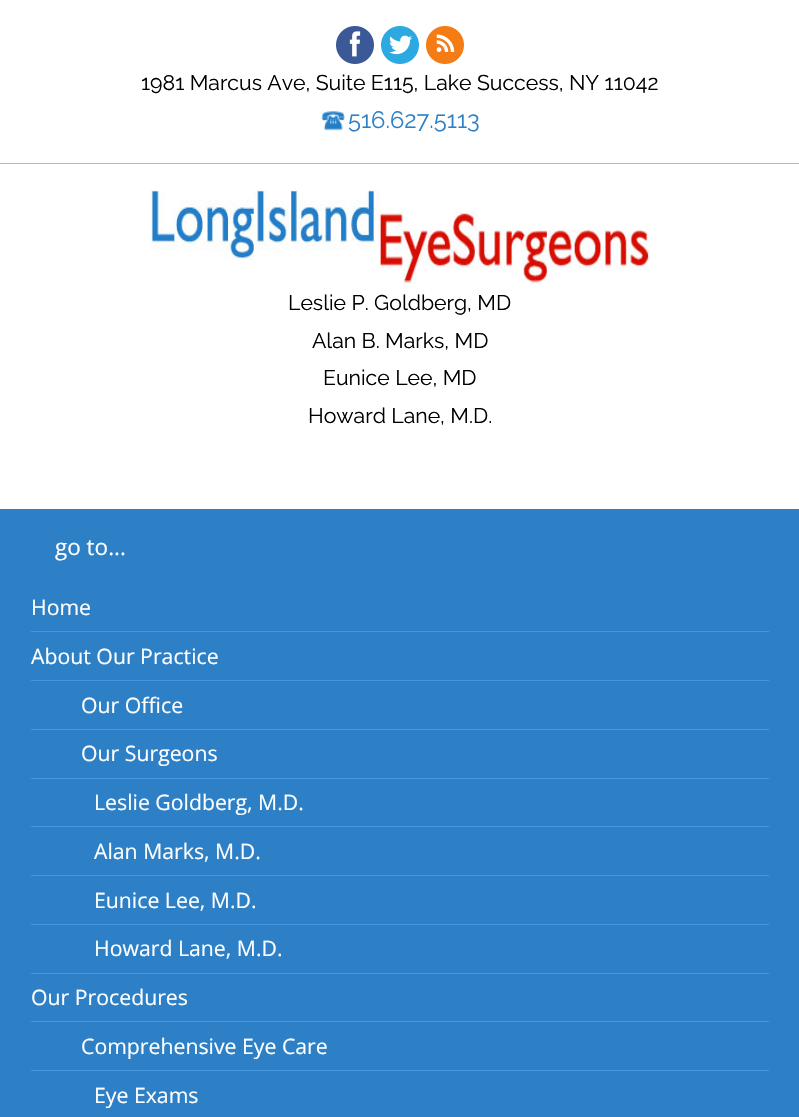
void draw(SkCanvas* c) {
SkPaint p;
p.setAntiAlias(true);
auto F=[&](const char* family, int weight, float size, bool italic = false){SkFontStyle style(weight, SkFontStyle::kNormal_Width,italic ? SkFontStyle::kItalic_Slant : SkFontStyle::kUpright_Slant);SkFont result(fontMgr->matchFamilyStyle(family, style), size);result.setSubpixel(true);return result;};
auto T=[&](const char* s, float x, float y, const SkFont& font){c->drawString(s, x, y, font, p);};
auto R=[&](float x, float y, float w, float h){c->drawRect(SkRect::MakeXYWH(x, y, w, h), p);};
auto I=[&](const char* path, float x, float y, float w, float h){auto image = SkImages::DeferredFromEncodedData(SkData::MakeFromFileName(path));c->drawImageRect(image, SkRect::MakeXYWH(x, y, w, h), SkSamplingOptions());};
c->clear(0xffffffff);
p.setColor(0xffb7b7b7);
R(0,163,799,1);
I("1.png",336,26,38,38);
I("2.png",381,26,38,38);
I("3.png",426,26,38,38);
auto f1 = F("Raleway",400,21.25);
p.setColor(0xff000000);
T("1981 Marcus Ave, Suite E115, Lake Success, NY 11042",141,90,f1);
I("4.png",321,111,25,20);
auto f2 = F("Raleway",400,23.75);
p.setColor(0xff2d80c6);
T("516.627.5113",348,128,f2);
I("5.png",150,190,500,94);
p.setColor(0xff000000);
T("Leslie P. Goldberg, MD",288,310,f1);
T("Alan B. Marks, MD",312,348,f1);
T("Eunice Lee, MD",323,385,f1);
T("Howard Lane, M.D.",308,423,f1);
p.setColor(0xff2d80c6);
R(0,509,799,608);
auto f3 = F("Open Sans",400,22.5);
p.setColor(0xffffffff);
T("go to...",55,555,f3);
p.setColor(0xff4497dd);
R(31,631,738,1);
auto f4 = F("Open Sans",400,21.25);
p.setColor(0xffffffff);
T("Home",31,615,f4);
p.setColor(0xff4497dd);
R(31,680,738,1);
p.setColor(0xffffffff);
T("About Our Practice",31,664,f4);
p.setColor(0xff4497dd);
R(31,729,738,1);
p.setColor(0xffffffff);
T("Our Office",81,713,f4);
p.setColor(0xff4497dd);
R(31,778,738,1);
p.setColor(0xffffffff);
T("Our Surgeons",81,761,f4);
p.setColor(0xff4497dd);
R(31,826,738,1);
p.setColor(0xffffffff);
T("Leslie Goldberg, M.D.",94,810,f4);
p.setColor(0xff4497dd);
R(31,875,738,1);
p.setColor(0xffffffff);
T("Alan Marks, M.D.",94,859,f4);
p.setColor(0xff4497dd);
R(31,924,738,1);
p.setColor(0xffffffff);
T("Eunice Lee, M.D.",94,908,f4);
p.setColor(0xff4497dd);
R(31,973,738,1);
p.setColor(0xffffffff);
T("Howard Lane, M.D.",94,956,f4);
p.setColor(0xff4497dd);
R(31,1021,738,1);
p.setColor(0xffffffff);
T("Our Procedures",31,1005,f4);
p.setColor(0xff4497dd);
R(31,1070,738,1);
p.setColor(0xffffffff);
T("Comprehensive Eye Care",81,1054,f4);
T("Eye Exams",94,1103,f4);
}
